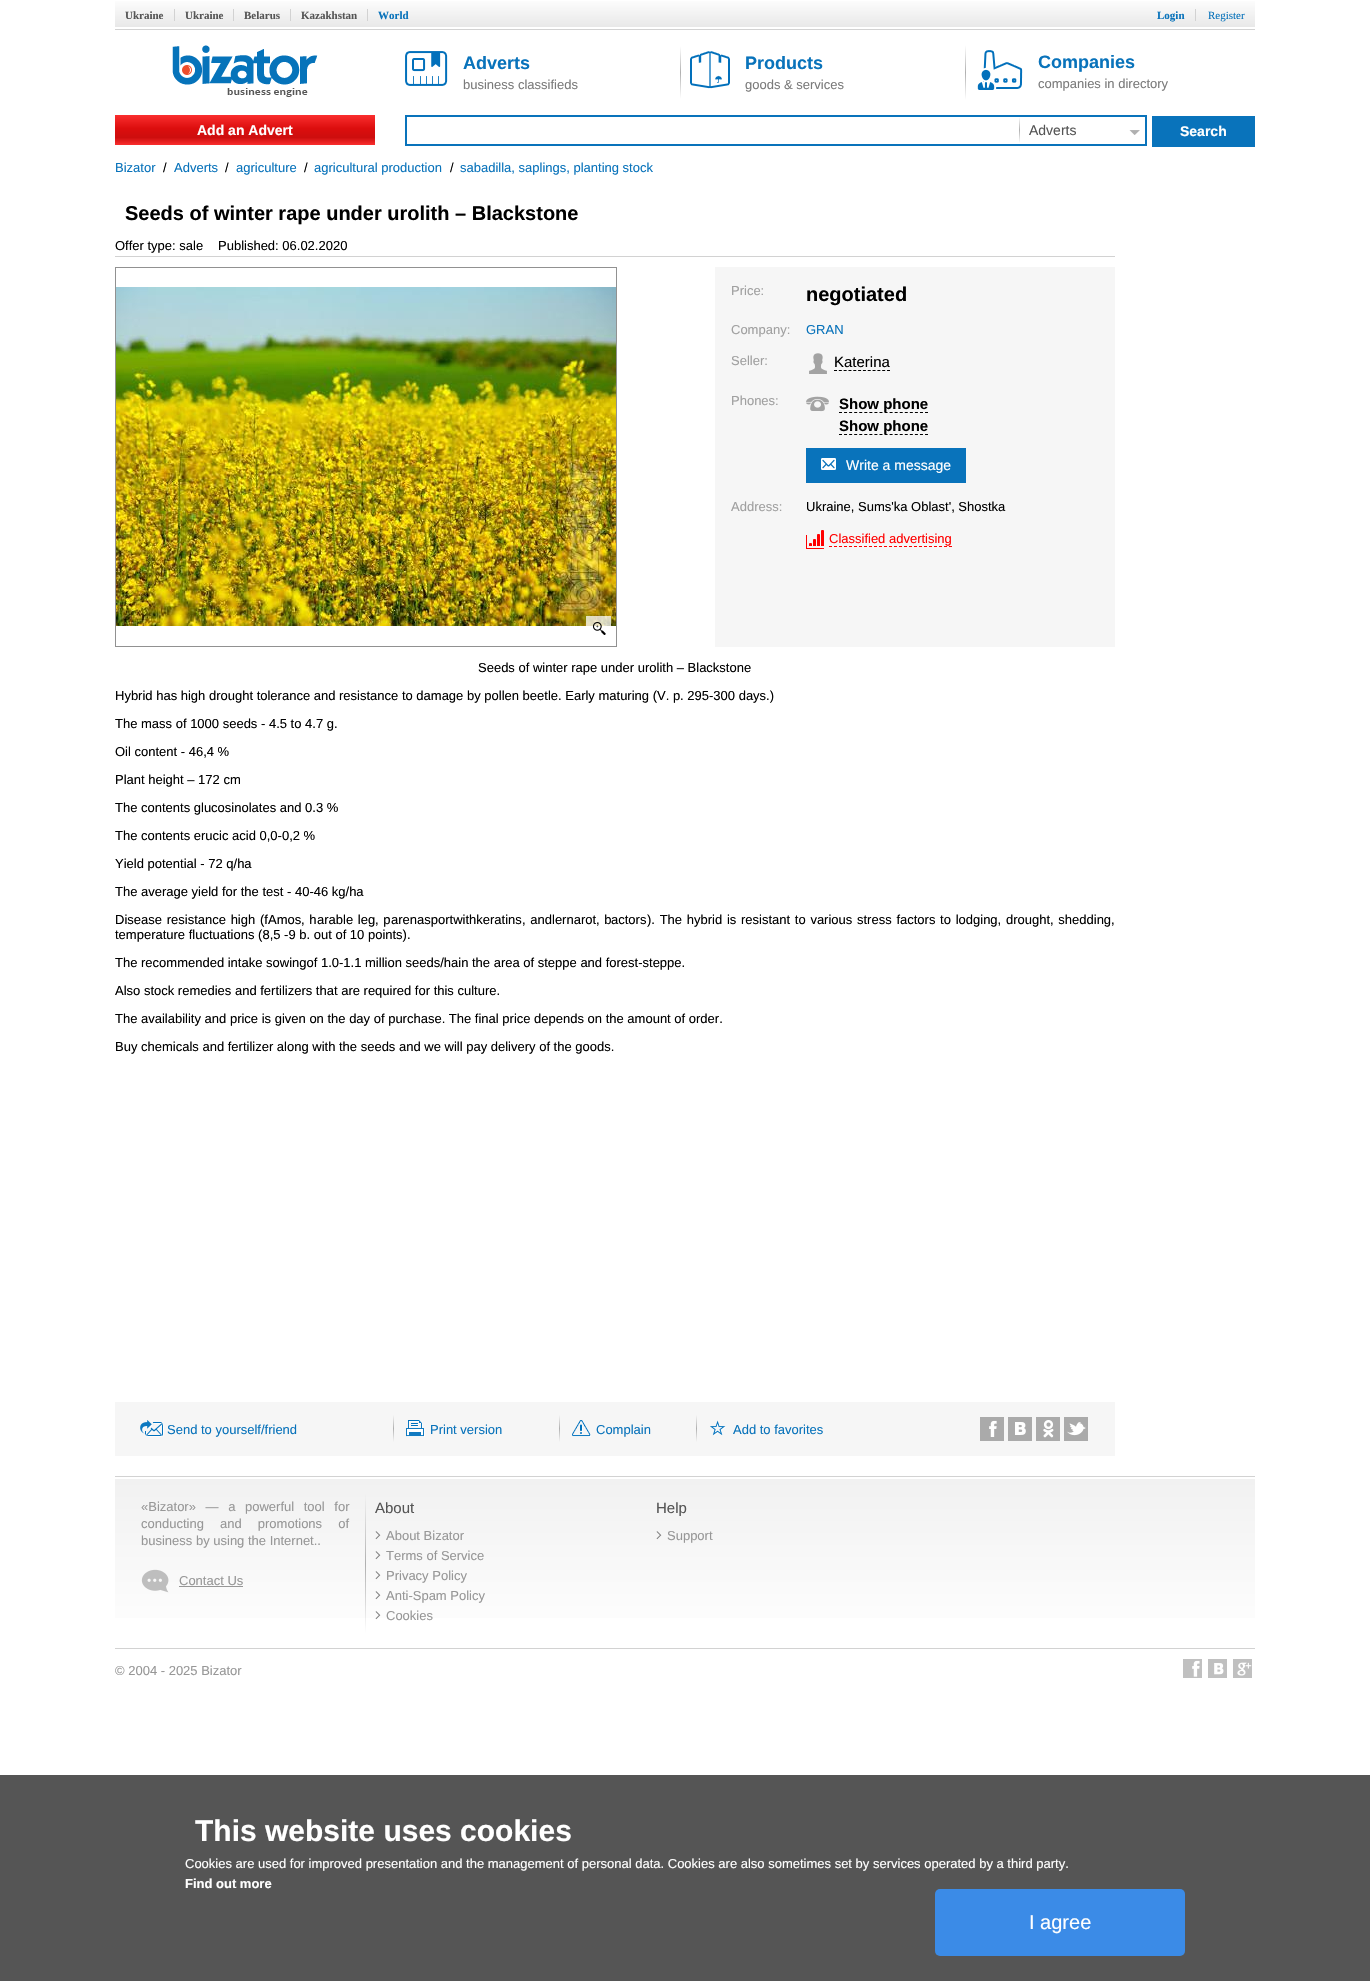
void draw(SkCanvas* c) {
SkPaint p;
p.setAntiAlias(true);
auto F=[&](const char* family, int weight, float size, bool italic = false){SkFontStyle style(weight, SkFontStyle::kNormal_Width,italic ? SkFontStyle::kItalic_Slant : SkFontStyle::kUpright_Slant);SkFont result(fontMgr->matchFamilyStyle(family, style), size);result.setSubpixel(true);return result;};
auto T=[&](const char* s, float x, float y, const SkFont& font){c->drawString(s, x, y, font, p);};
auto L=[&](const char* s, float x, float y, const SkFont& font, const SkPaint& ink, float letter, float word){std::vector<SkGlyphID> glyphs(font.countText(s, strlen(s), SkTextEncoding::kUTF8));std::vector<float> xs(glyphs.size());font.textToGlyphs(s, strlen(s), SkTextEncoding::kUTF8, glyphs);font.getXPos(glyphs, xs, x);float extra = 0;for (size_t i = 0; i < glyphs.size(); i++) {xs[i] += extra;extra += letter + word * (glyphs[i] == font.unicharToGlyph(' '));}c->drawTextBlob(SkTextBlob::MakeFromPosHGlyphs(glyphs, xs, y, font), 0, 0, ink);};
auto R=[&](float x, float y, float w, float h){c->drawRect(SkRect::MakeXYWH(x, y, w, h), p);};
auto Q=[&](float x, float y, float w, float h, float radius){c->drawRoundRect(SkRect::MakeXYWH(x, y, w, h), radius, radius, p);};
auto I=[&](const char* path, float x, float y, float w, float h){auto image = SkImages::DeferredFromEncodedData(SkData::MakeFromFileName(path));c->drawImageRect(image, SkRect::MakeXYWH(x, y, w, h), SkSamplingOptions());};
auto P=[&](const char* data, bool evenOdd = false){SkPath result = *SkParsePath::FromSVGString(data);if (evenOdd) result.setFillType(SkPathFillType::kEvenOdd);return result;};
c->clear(0xffffffff);
{
const SkColor colors[] = {0xfffdfdfd,0xffe8e8e8};
const float stops[] = {0,1};
const SkPoint ends[] = {{685,0}, {685,27}};
p.setShader(SkGradientShader::MakeLinear(ends, colors, stops, 2, SkTileMode::kClamp));
p.setAlpha(255);
}
R(115,1,1140,26);
p.setShader(nullptr);
p.setColor(0xffd2d2d2);
R(115,29,1140,1);
auto f1 = F("Liberation Serif",700,11);
p.setColor(0xff555555);
T("Ukraine",125,19,f1);
p.setColor(0xffd2d2d2);
R(174,9,1,12);
p.setColor(0xff555555);
T("Ukraine",185,19,f1);
p.setColor(0xffd2d2d2);
R(233,9,1,12);
p.setColor(0xff555555);
T("Belarus",244,19,f1);
p.setColor(0xffd2d2d2);
R(290,9,1,12);
p.setColor(0xff555555);
T("Kazakhstan",301,19,f1);
p.setColor(0xffd2d2d2);
R(367,9,1,12);
p.setColor(0xff0973bb);
T("World",378,19,f1);
T("Login",1157,19,f1);
p.setColor(0xffd2d2d2);
R(1195,9,1,12);
auto f2 = F("Liberation Serif",400,11);
p.setColor(0xff0973bb);
T("Register",1208,19,f2);
I("1.png",172,45,146,52);
I("2.png",405,51,43,35);
auto f3 = F("Liberation Sans",700,18);
T("Adverts",463,69,f3);
auto f4 = F("Liberation Sans",400,13);
p.setColor(0xff7b7b7b);
T("business classifieds",463,89,f4);
{
const SkColor colors[] = {0xffffffff,0xffb0b0b0,0xffffffff};
const float stops[] = {0,.5,1};
const SkPoint ends[] = {{681,46}, {681,99}};
p.setShader(SkGradientShader::MakeLinear(ends, colors, stops, 3, SkTileMode::kClamp));
p.setAlpha(255);
}
R(680,46,1,53);
I("3.png",690,51,40,38);
p.setShader(nullptr);
p.setColor(0xff0973bb);
T("Products",745,69,f3);
p.setColor(0xff7b7b7b);
T("goods & services",745,89,f4);
{
const SkColor colors[] = {0xffffffff,0xffb0b0b0,0xffffffff};
const float stops[] = {0,.5,1};
const SkPoint ends[] = {{966,45}, {966,100}};
p.setShader(SkGradientShader::MakeLinear(ends, colors, stops, 3, SkTileMode::kClamp));
p.setAlpha(255);
}
R(965,45,1,55);
I("4.png",977,50,46,40);
p.setShader(nullptr);
p.setColor(0xff0973bb);
T("Companies",1038,68,f3);
p.setColor(0xff7b7b7b);
T("companies in directory",1038,88,f4);
{
const SkColor colors[] = {0xfffa2e2e,0xffdc0e0e,0xffcd0e0e,0xfffa2e2e};
const float stops[] = {0,.45,.75,1};
const SkPoint ends[] = {{245,115}, {245,145}};
p.setShader(SkGradientShader::MakeLinear(ends, colors, stops, 4, SkTileMode::kClamp));
p.setAlpha(255);
}
R(115,115,260,30);
auto f5 = F("Liberation Sans",700,14);
p.setShader(nullptr);
p.setColor(0xffffffff);
T("Add an Advert",197,135,f5);
p.setColor(0xff0973bb);
R(405,115,742,2);
R(1145,115,2,31);
R(405,144,742,2);
R(405,115,2,31);
{
const SkColor colors[] = {0xffffffff,0xffb0b0b0,0xffffffff};
const float stops[] = {0,.5,1};
const SkPoint ends[] = {{1020,117}, {1020,143}};
p.setShader(SkGradientShader::MakeLinear(ends, colors, stops, 3, SkTileMode::kClamp));
p.setAlpha(255);
}
R(1019,117,1,26);
auto f6 = F("Liberation Sans",400,14);
p.setShader(nullptr);
p.setColor(0xff555555);
T("Adverts",1029,135,f6);
I("5.png",1129,130,11,5);
p.setColor(0xff0973bb);
R(1152,116,103,31);
p.setColor(0xffffffff);
T("Search",1180,136,f5);
p.setColor(0xff0973bb);
T("Bizator",115,172,f4);
p.setColor(0xff000000);
T("/",163,172,f4);
p.setColor(0xff0973bb);
T("Adverts",174,172,f4);
p.setColor(0xff000000);
T("/",225,172,f4);
p.setColor(0xff0973bb);
T("agriculture",236,172,f4);
p.setColor(0xff000000);
T("/",304,172,f4);
p.setColor(0xff0973bb);
T("agricultural production",314,172,f4);
p.setColor(0xff000000);
T("/",450,172,f4);
p.setColor(0xff0973bb);
T("sabadilla, saplings, planting stock",460,172,f4);
auto f7 = F("Liberation Sans",700,20);
p.setColor(0xff000000);
T("Seeds of winter rape under urolith – Blackstone",125,220,f7);
p.setColor(0xffd2d2d2);
R(115,256,1000,1);
p.setColor(0xff000000);
T("Offer type: sale",115,250,f4);
T("Published: 06.02.2020",218,250,f4);
p.setStroke(true);
p.setStrokeWidth(1);
p.setColor(0xff919191);
c->drawRect(SkRect::MakeXYWH(115.5,267.5,501,379),p);
I("6.png",116,287,500,339);
I("7.png",586,616,25,19);
p.setStroke(false);
p.setColor(0xfff6f6f6);
R(715,267,400,380);
p.setColor(0xffa0a0a0);
T("Price:",731,295,f4);
p.setColor(0xff000000);
T("negotiated",806,301,f7);
p.setColor(0xffa0a0a0);
T("Company:",731,334,f4);
p.setColor(0xff0973bb);
T("GRAN",806,334,f4);
p.setColor(0xffa0a0a0);
T("Seller:",731,365,f4);
I("8.png",809,353,18,21);
auto f8 = F("Liberation Sans",400,15);
p.setColor(0xff000000);
T("Katerina",834,367,f8);
p.setStroke(true);
p.setPathEffect(SkDashPathEffect::Make({{3,1.82f}}, 0));
c->drawPath(P("M834 370.5h56"),p);
p.setPathEffect(nullptr);
p.setStroke(false);
p.setColor(0xffa0a0a0);
T("Phones:",731,405,f4);
I("9.png",806,396,23,16);
p.setStroke(true);
p.setColor(0xff000000);
p.setPathEffect(SkDashPathEffect::Make({{3,2.06f}}, 0));
c->drawPath(P("M839 412.5h89"),p);
p.setPathEffect(nullptr);
auto f9 = F("Liberation Sans",700,15);
p.setStroke(false);
T("Show phone",839,409,f9);
p.setStroke(true);
p.setPathEffect(SkDashPathEffect::Make({{3,2.06f}}, 0));
c->drawPath(P("M839 434.5h89"),p);
p.setPathEffect(nullptr);
p.setStroke(false);
T("Show phone",839,431,f9);
p.setColor(0xff0973bb);
R(806,448,160,35);
I("10.png",821,458,15,12);
p.setColor(0xffffffff);
T("Write a message",846,470,f6);
p.setColor(0xffa0a0a0);
T("Address:",731,511,f4);
p.setColor(0xff000000);
T("Ukraine, Sums'ka Oblast', Shostka",806,511,f4);
I("11.png",806,530,18,19);
p.setColor(0xffff0000);
T("Classified advertising",829,543,f4);
p.setStroke(true);
p.setPathEffect(SkDashPathEffect::Make({{3,2}}, 0));
c->drawPath(P("M829 546.5h123"),p);
p.setPathEffect(nullptr);
p.setStroke(false);
p.setColor(0xff000000);
T("Seeds of winter rape under urolith – Blackstone",478,672,f4);
T("Hybrid has high drought tolerance and resistance to damage by pollen beetle. Early maturing (V. p. 295-300 days.)",115,700,f4);
T("The mass of 1000 seeds - 4.5 to 4.7 g.",115,728,f4);
T("Oil content - 46,4 %",115,756,f4);
T("Plant height – 172 cm",115,784,f4);
T("The contents glucosinolates and 0.3 %",115,812,f4);
T("The contents erucic acid 0,0-0,2 %",115,840,f4);
T("Yield potential - 72 q/ha",115,868,f4);
T("The average yield for the test - 40-46 kg/ha",115,896,f4);
L("Disease resistance high (f",115,924,f4,p,0,1.1);
T("Amos",268,924,f4);
L(", h",301,924,f4,p,0,1);
L("arable leg",317,924,f4,p,0,1.1);
L(", p",375,924,f4,p,0,1);
T("arenasportwithkeratins",391,924,f4);
L(", and",522,924,f4,p,0,1.1);
T("lernarot",552,924,f4);
L(", b",596,924,f4,p,0,1);
T("actors",611,924,f4);
L("). The hybrid is resistant to various stress factors to lodging, drought, shedding,",647,924,f4,p,0,1.1);
T("temperature fluctuations (8,5 -9 b. out of 10 points).",115,939,f4);
T("The recommended intake sowingof 1.0-1.1 million seeds/hain the area of steppe and forest-steppe.",115,967,f4);
T("Also stock remedies and fertilizers that are required for this culture.",115,995,f4);
T("The availability and price is given on the day of purchase. The final price depends on the amount of order.",115,1023,f4);
T("Buy chemicals and fertilizer along with the seeds and we will pay delivery of the goods.",115,1051,f4);
p.setColor(0xfff6f6f6);
R(115,1402,1000,54);
I("12.png",140,1420,24,17);
p.setColor(0xff0973bb);
T("Send to yourself/friend",167,1434,f4);
{
const SkColor colors[] = {0xfff6f6f6,0xffb0b0b0,0xfff6f6f6};
const float stops[] = {0,.5,1};
const SkPoint ends[] = {{394,1415}, {394,1442}};
p.setShader(SkGradientShader::MakeLinear(ends, colors, stops, 3, SkTileMode::kClamp));
p.setAlpha(255);
}
R(393,1415,1,27);
I("13.png",406,1420,19,17);
p.setShader(nullptr);
p.setColor(0xff0973bb);
T("Print version",430,1434,f4);
{
const SkColor colors[] = {0xfff6f6f6,0xffb0b0b0,0xfff6f6f6};
const float stops[] = {0,.5,1};
const SkPoint ends[] = {{560,1415}, {560,1442}};
p.setShader(SkGradientShader::MakeLinear(ends, colors, stops, 3, SkTileMode::kClamp));
p.setAlpha(255);
}
R(559,1415,1,27);
I("14.png",572,1420,19,17);
p.setShader(nullptr);
p.setColor(0xff0973bb);
T("Complain",596,1434,f4);
{
const SkColor colors[] = {0xfff6f6f6,0xffb0b0b0,0xfff6f6f6};
const float stops[] = {0,.5,1};
const SkPoint ends[] = {{697,1415}, {697,1442}};
p.setShader(SkGradientShader::MakeLinear(ends, colors, stops, 3, SkTileMode::kClamp));
p.setAlpha(255);
}
R(696,1415,1,27);
I("15.png",710,1420,16,16);
p.setShader(nullptr);
p.setColor(0xff0973bb);
T("Add to favorites",733,1434,f4);
I("16.png",980,1417,24,24);
I("17.png",1008,1417,24,24);
I("18.png",1036,1417,24,24);
I("19.png",1064,1417,24,24);
p.setColor(0xffd2d2d2);
R(115,1476,1140,1);
{
const SkColor colors[] = {0xfff1f1f1,0xffffffff};
const float stops[] = {0,1};
const SkPoint ends[] = {{685,1479}, {685,1648}};
p.setShader(SkGradientShader::MakeLinear(ends, colors, stops, 2, SkTileMode::kClamp));
p.setAlpha(255);
}
R(115,1479,1140,139);
p.setShader(nullptr);
p.setColor(0xff979797);
L("«Bizator» — a powerful tool for",141,1511,f4,p,0,6);
L("conducting and promotions of",141,1528,f4,p,0,12.5);
T("business by using the Internet..",141,1545,f4);
I("20.png",141,1569,28,24);
T("Contact Us",179,1585,f4);
R(179,1586,64,1);
{
const SkColor colors[] = {0x00b0b0b0,0xffb0b0b0,0x00b0b0b0};
const float stops[] = {0,.5,1};
const SkPoint ends[] = {{366,1494}, {366,1633}};
p.setShader(SkGradientShader::MakeLinear(ends, colors, stops, 3, SkTileMode::kClamp));
p.setAlpha(255);
}
R(365,1494,1,139);
p.setShader(nullptr);
p.setColor(0xff555555);
T("About",375,1513,f8);
I("21.png",375,1531,6,9);
p.setColor(0xff979797);
T("About Bizator",386,1540,f4);
I("22.png",375,1551,6,9);
T("Terms of Service",386,1560,f4);
I("23.png",375,1571,6,9);
T("Privacy Policy",386,1580,f4);
I("24.png",375,1591,6,9);
T("Anti-Spam Policy",386,1600,f4);
I("25.png",375,1611,6,9);
T("Cookies",386,1620,f4);
p.setColor(0xff555555);
T("Help",656,1513,f8);
I("21.png",656,1531,6,9);
p.setColor(0xff979797);
T("Support",667,1540,f4);
p.setColor(0xffd2d2d2);
R(115,1648,1140,1);
p.setColor(0xff979797);
T("© 2004 - 2025 Bizator",115,1675,f4);
I("26.png",1183,1659,19,19);
I("27.png",1208,1659,19,19);
I("28.png",1233,1659,19,19);
p.setColor(0xff555555);
R(0,1775,1370,206);
auto f10 = F("Liberation Sans",700,30);
p.setColor(0xffffffff);
T("This website uses cookies",195,1841,f10);
T("Cookies are used for improved presentation and the management of personal data. Cookies are also sometimes set by services operated by a third party.",185,1868,f4);
auto f11 = F("Liberation Sans",700,13);
T("Find out more",185,1888,f11);
p.setColor(0xff3b8be7);
Q(935,1889,250,67,5);
auto f12 = F("Liberation Sans",400,20);
p.setColor(0xffffffff);
T("I agree",1029,1929,f12);
}
